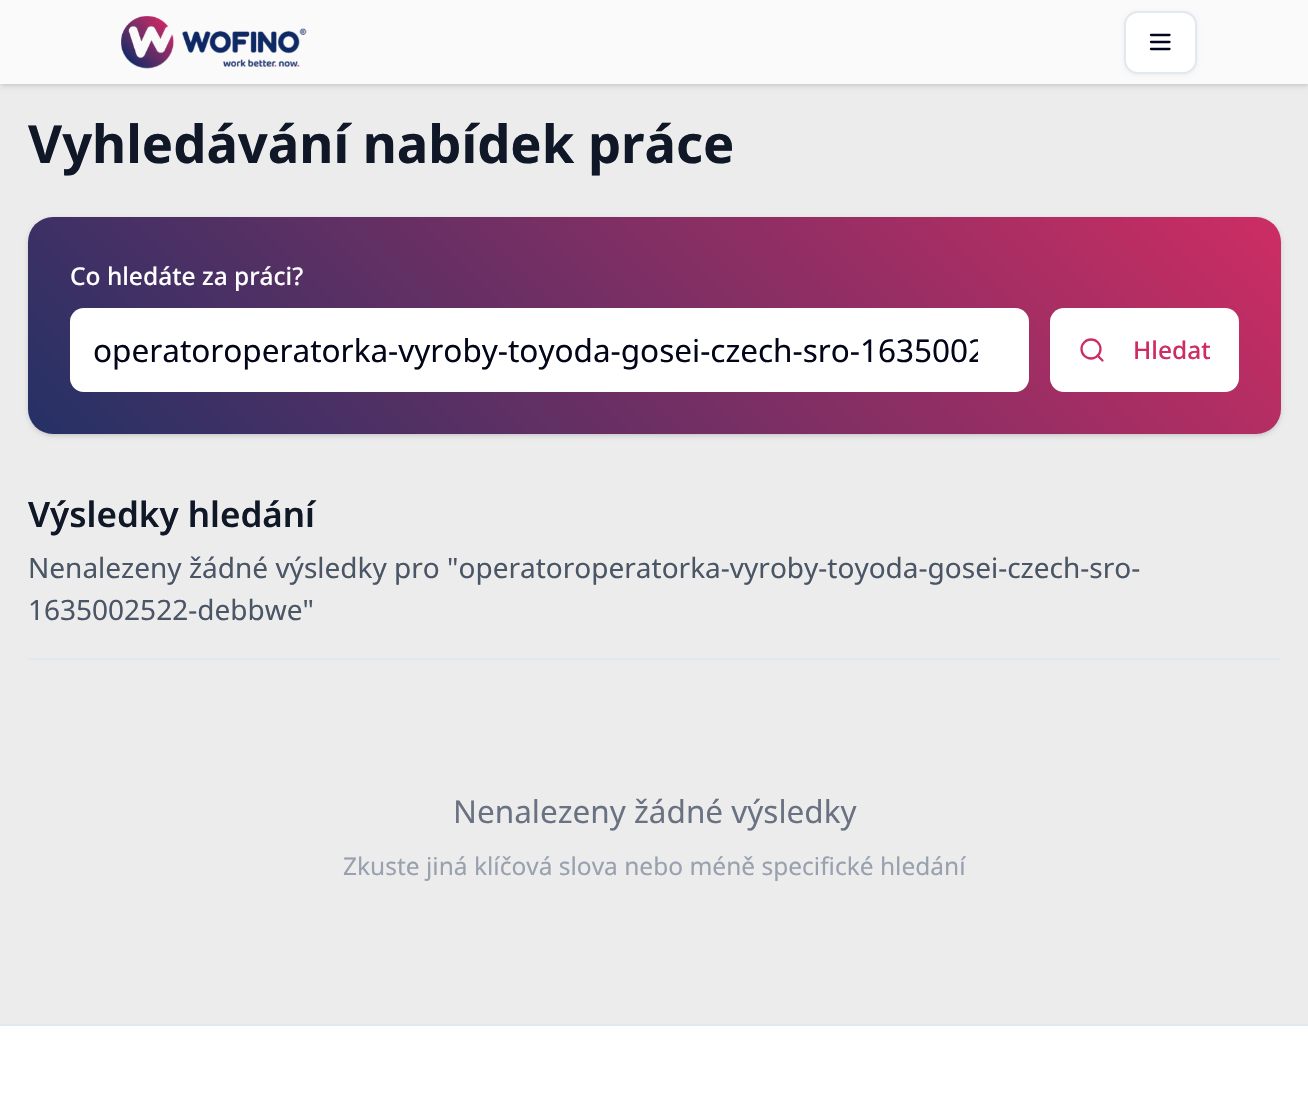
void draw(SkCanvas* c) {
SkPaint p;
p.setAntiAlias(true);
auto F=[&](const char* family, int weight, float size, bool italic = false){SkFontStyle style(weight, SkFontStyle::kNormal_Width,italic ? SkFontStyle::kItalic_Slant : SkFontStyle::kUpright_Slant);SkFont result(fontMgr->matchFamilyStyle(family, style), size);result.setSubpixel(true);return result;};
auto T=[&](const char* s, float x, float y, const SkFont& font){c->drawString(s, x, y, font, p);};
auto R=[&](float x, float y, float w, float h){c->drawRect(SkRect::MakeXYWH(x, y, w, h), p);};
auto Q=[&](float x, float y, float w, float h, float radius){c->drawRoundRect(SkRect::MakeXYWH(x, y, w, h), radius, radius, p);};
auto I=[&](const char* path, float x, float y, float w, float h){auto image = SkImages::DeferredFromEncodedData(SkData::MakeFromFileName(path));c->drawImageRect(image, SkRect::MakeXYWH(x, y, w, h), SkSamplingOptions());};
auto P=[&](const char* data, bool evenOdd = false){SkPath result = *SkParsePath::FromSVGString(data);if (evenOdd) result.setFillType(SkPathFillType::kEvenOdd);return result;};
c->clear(0xffffffff);
p.setColor(0xffececec);
R(0,84,1308,940);
p.setColor(0x1a000000);
p.setMaskFilter(SkMaskFilter::MakeBlur(kNormal_SkBlurStyle, 2));
c->drawRect(SkRect::MakeXYWH(2,4,1305,80),p);
p.setMaskFilter(nullptr);
p.setMaskFilter(SkMaskFilter::MakeBlur(kNormal_SkBlurStyle, 2.5));
c->drawRect(SkRect::MakeXYWH(0,2,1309,84),p);
p.setMaskFilter(nullptr);
p.setColor(0xfffafafa);
R(0,0,1308,84);
I("1.png",121,16,186,53);
p.setColor(0x0d000000);
p.setMaskFilter(SkMaskFilter::MakeBlur(kNormal_SkBlurStyle, 2));
c->drawRoundRect(SkRect::MakeXYWH(1124,12,73,63),14,14,p);
p.setMaskFilter(nullptr);
p.setColor(0xffffffff);
c->drawRoundRect(SkRect::MakeXYWH(1125,12,71,61),13,13,p);
p.setStroke(true);
p.setStrokeWidth(2);
p.setColor(0xffe2e8f0);
c->drawRoundRect(SkRect::MakeXYWH(1125,12,71,61),13,13,p);
p.setStrokeWidth(2.3);
p.setStrokeCap(SkPaint::kRound_Cap);
p.setStrokeJoin(SkPaint::kRound_Join);
p.setColor(0xff020618);
c->drawPath(P("M1151 42h18.5m-18.5 7h18.5m-18.5-14h18.5"),p);
auto f1 = F("Noto Sans",700,52.5);
p.setStroke(false);
p.setColor(0xff101828);
T("Vyhledávání nabídek práce",28,163,f1);
p.setColor(0x1a000000);
p.setMaskFilter(SkMaskFilter::MakeBlur(kNormal_SkBlurStyle, 2));
c->drawRoundRect(SkRect::MakeXYWH(30,221,1249,213),23,23,p);
p.setMaskFilter(nullptr);
p.setMaskFilter(SkMaskFilter::MakeBlur(kNormal_SkBlurStyle, 2.5));
c->drawRoundRect(SkRect::MakeXYWH(28,219,1253,217),25,25,p);
p.setMaskFilter(nullptr);
{
const SkColor colors[] = {0xff243165,0xffcd2d63};
const float stops[] = {0,1};
const SkPoint ends[] = {{287,693}, {1022,-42}};
p.setShader(SkGradientShader::MakeLinear(ends, colors, stops, 2, SkTileMode::kClamp));
p.setAlpha(255);
}
Q(28,217,1253,217,25);
auto f2 = F("Noto Sans",500,24.5);
p.setShader(nullptr);
p.setColor(0xffffffff);
T("Co hledáte za práci?",70,285,f2);
Q(70,308,959,84,14);
p.setStroke(true);
p.setStrokeWidth(2);
p.setStrokeCap(SkPaint::kButt_Cap);
p.setStrokeJoin(SkPaint::kMiter_Join);
p.setColor(0x33ffffff);
c->drawRoundRect(SkRect::MakeXYWH(71,309,957,82),13,13,p);
c->save();
c->clipRect(SkRect::MakeXYWH(93,329,885,42));
auto f3 = F("Noto Sans",400,31.5);
p.setStroke(false);
p.setColor(0xff020618);
T("operatoroperatorka-vyroby-toyoda-gosei-czech-sro-1635002",93,362,f3);
c->restore();
p.setColor(0xffffffff);
Q(1050,308,189,84,14);
p.setStroke(true);
p.setStrokeWidth(2.3);
p.setStrokeCap(SkPaint::kRound_Cap);
p.setStrokeJoin(SkPaint::kRound_Join);
p.setColor(0xffcd2d63);
c->drawPath(P("M1102.5 360.5l-5-5"),p);
p.setStrokeCap(SkPaint::kButt_Cap);
p.setStrokeJoin(SkPaint::kMiter_Join);
c->drawCircle(1091,349,9.5,p);
p.setStroke(false);
T("Hledat",1133,359,f2);
p.setColor(0xffe2e8f0);
R(28,658,1253,2);
auto f4 = F("Noto Sans",600,35);
p.setColor(0xff101828);
T("Výsledky hledání",28,527,f4);
auto f5 = F("Noto Sans",400,28);
p.setColor(0xff4a5565);
T("Nenalezeny žádné výsledky pro \"operatoroperatorka-vyroby-toyoda-gosei-czech-sro-",28,578,f5);
T("1635002522-debbwe\"",28,620,f5);
p.setColor(0xff6a7282);
T("Nenalezeny žádné výsledky",453,823,f3);
auto f6 = F("Noto Sans",400,24.5);
p.setColor(0xff99a1af);
T("Zkuste jiná klíčová slova nebo méně specifické hledání",343,875,f6);
p.setColor(0xffe2e8f0);
R(0,1024,1308,2);
}
